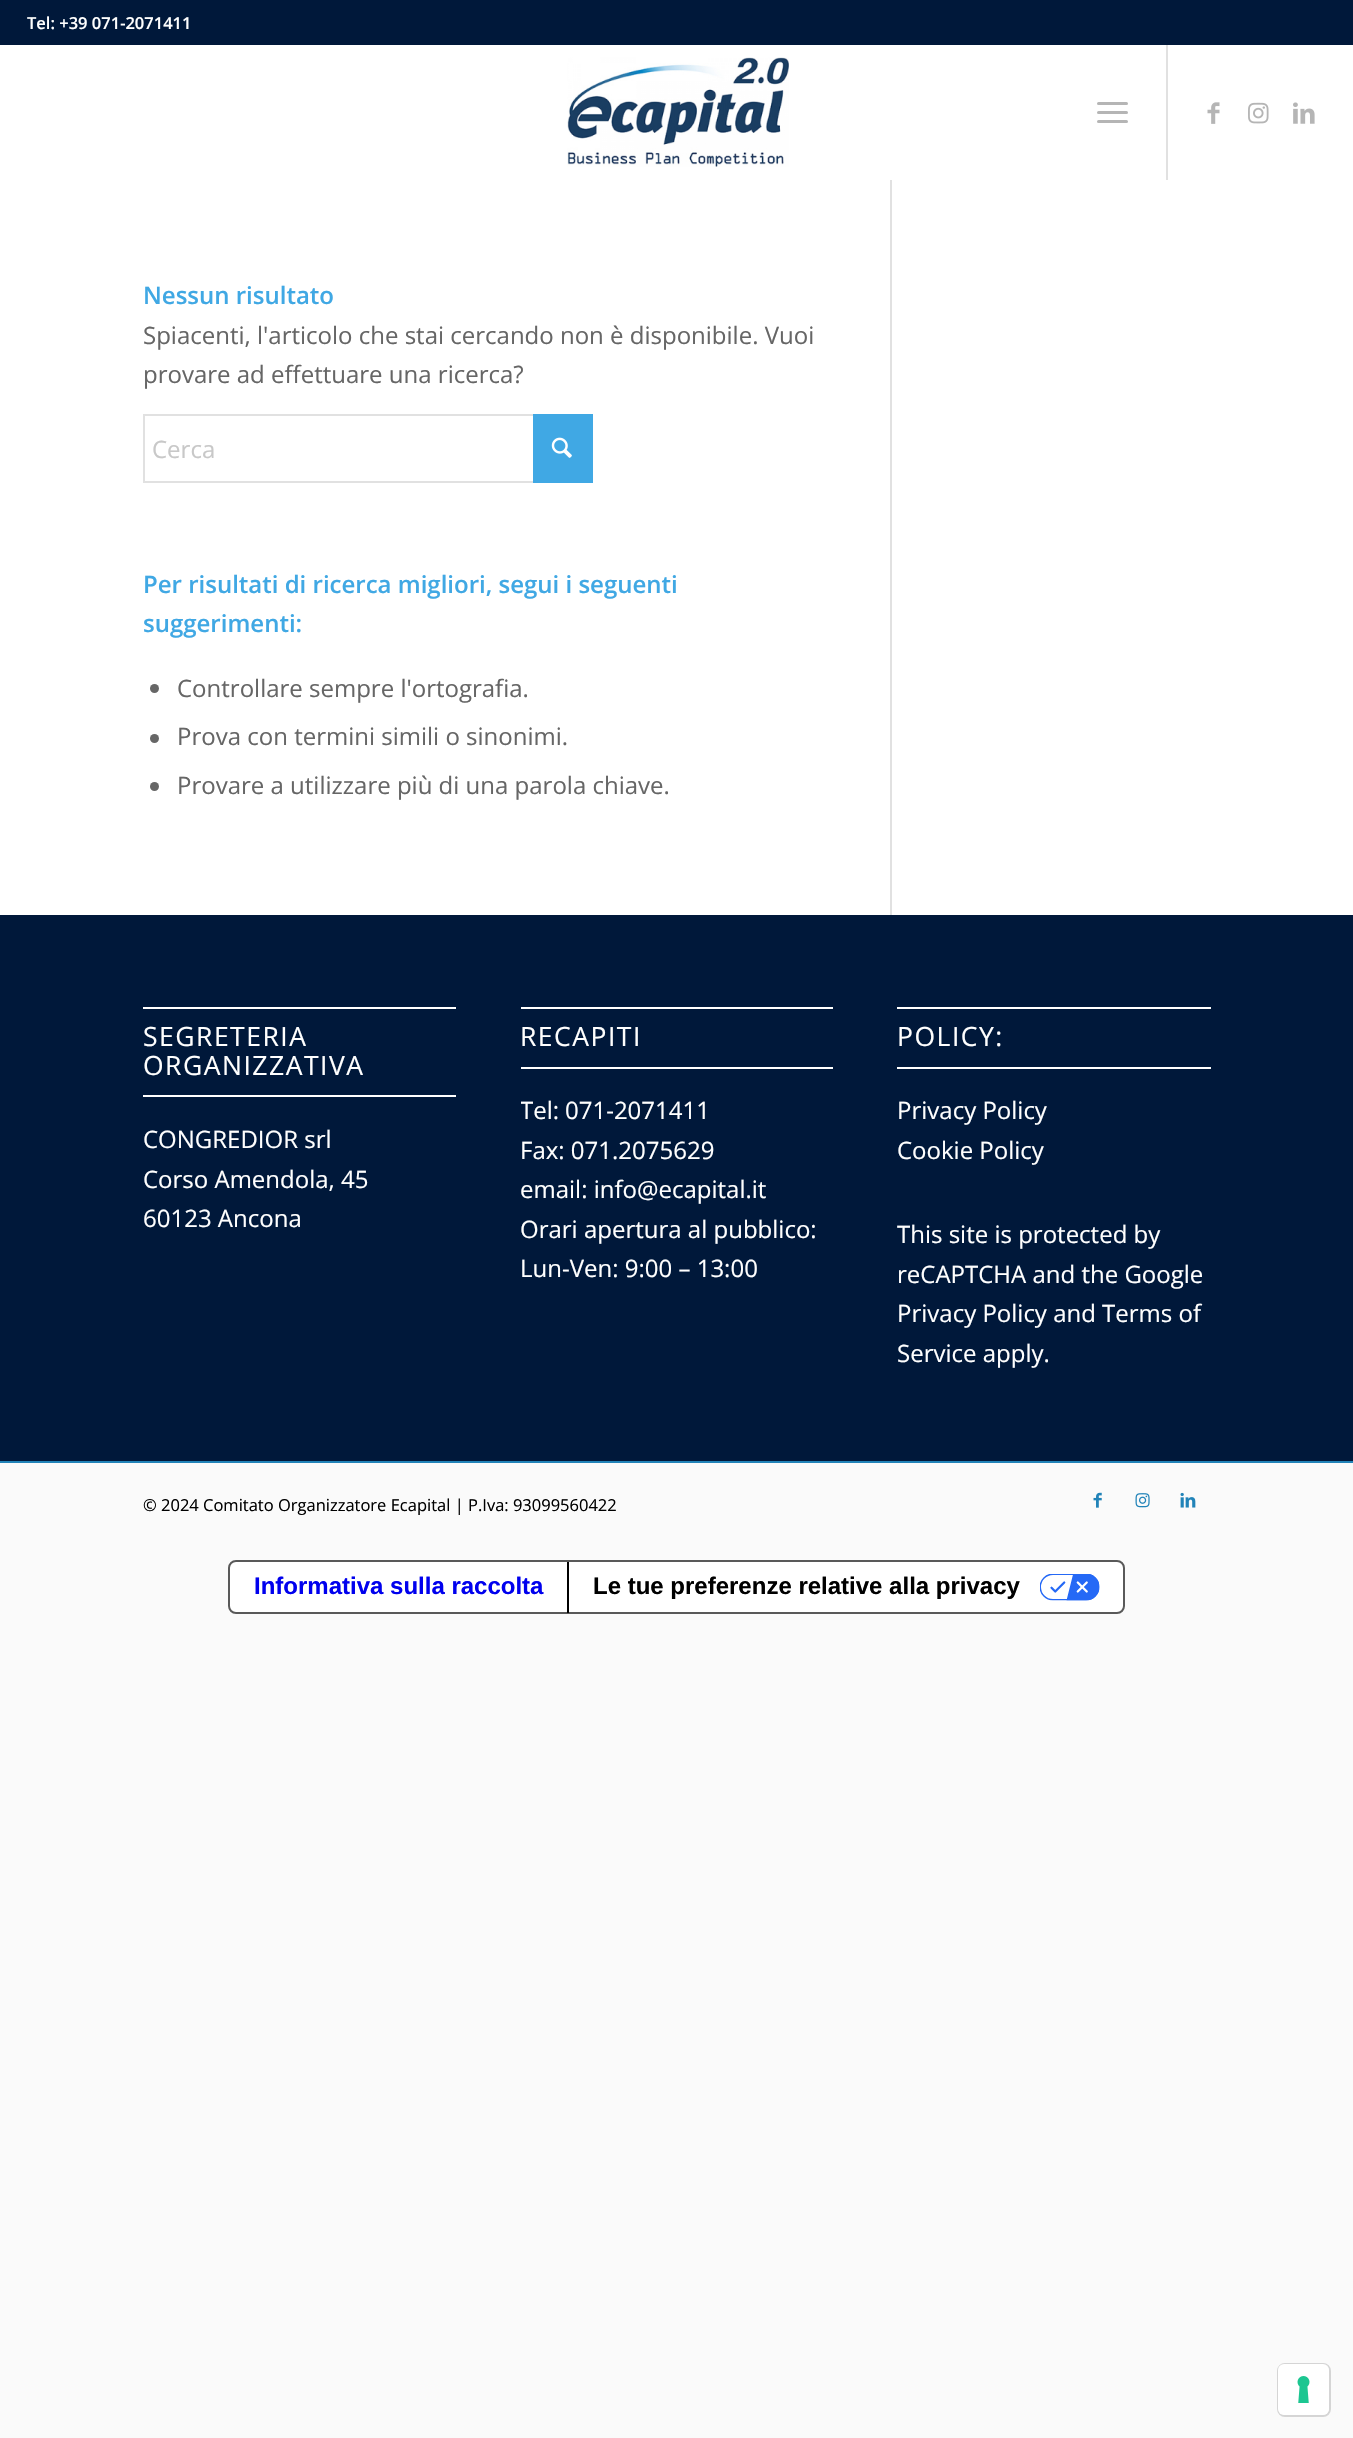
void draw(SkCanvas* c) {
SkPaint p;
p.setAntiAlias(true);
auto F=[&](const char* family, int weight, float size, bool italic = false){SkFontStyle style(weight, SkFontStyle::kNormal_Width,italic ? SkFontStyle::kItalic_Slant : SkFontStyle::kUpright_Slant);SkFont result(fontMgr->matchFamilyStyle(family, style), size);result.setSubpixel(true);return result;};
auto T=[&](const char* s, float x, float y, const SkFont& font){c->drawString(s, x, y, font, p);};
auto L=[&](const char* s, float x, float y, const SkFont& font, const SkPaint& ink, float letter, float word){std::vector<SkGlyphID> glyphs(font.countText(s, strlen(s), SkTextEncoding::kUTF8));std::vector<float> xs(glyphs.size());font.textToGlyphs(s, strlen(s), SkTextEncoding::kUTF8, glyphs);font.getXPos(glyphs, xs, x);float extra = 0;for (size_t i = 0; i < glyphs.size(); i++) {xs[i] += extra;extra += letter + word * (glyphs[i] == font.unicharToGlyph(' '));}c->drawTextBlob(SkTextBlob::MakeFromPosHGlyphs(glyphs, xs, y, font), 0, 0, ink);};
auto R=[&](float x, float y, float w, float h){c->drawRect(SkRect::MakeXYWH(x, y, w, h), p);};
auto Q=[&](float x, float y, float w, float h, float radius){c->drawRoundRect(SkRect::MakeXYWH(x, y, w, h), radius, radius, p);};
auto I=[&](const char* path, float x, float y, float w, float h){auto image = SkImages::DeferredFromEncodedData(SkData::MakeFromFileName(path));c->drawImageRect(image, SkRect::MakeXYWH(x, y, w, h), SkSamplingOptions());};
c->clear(0xfffafafa);
p.setColor(0xff00183a);
R(0,0,1353,45);
auto f1 = F("Open Sans",600,16.5);
p.setColor(0xffffffff);
T("Tel: +39 071-2071411",27,29,f1);
R(0,45,1353,870);
I("1.png",567,57,222,110);
p.setColor(0xffe1e1e1);
R(1166,45,2,135);
p.setColor(0xffb5b5b5);
Q(1097,111,31,3,1.5);
Q(1097,102,31,3,1.5);
Q(1097,120,31,3,1.5);
I("2.png",1207,102,13,22);
I("3.png",1248,102,21,22);
I("4.png",1293,102,22,22);
p.setColor(0xffe1e1e1);
R(890,180,2,735);
auto f2 = F("Open Sans",600,24);
p.setColor(0xff40a8e4);
T("Nessun risultato",143,304,f2);
auto f3 = F("Open Sans",400,24);
p.setColor(0xff666666);
T("Spiacenti, l'articolo che stai cercando non è disponibile. Vuoi",143,344,f3);
T("provare ad effettuare una ricerca?",143,383,f3);
p.setStroke(true);
p.setStrokeWidth(2);
p.setColor(0xffe1e1e1);
c->drawRect(SkRect::MakeXYWH(144,415,448,67),p);
p.setStroke(false);
p.setColor(0xff40a8e4);
R(533,414,60,69);
p.setColor(0xffc8c8c8);
T("Cerca",152,458,f3);
I("5.png",551,437,21,21);
p.setColor(0xff40a8e4);
T("Per risultati di ricerca migliori, segui i seguenti",143,593,f2);
T("suggerimenti:",143,632,f2);
p.setColor(0xff666666);
c->drawCircle(154.5,688.5,4.5,p);
T("Controllare sempre l'ortografia.",177,697,f3);
c->drawCircle(154.5,738.5,4.5,p);
T("Prova con termini simili o sinonimi.",177,745,f3);
c->drawCircle(154.5,786.5,4.5,p);
T("Provare a utilizzare più di una parola chiave.",177,794,f3);
p.setColor(0xff00183a);
R(0,915,1353,546);
p.setColor(0xffffffff);
R(143,1007,313,2);
R(143,1095,313,2);
auto f4 = F("Open Sans",400,26.5);
L("SEGRETERIA",143,1046,f4,p,1.5,0);
L("ORGANIZZATIVA",143,1075,f4,p,1.5,0);
T("CONGREDIOR srl",143,1148,f3);
T("Corso Amendola, 45",143,1188,f3);
T("60123 Ancona",143,1227,f3);
R(521,1007,312,2);
R(521,1067,312,2);
L("RECAPITI",520,1046,f4,p,1.5,0);
c->save();
c->clipRect(SkRect::MakeXYWH(521,984,312,326));
T("Tel:",520,1119,f3);
c->restore();
T("071-2071411",565,1119,f3);
T("Fax: 071.2075629",520,1159,f3);
T("email: info@ecapital.it",520,1198,f3);
T("Orari apertura al pubblico:",520,1238,f3);
T("Lun-Ven: 9:00 – 13:00",520,1277,f3);
R(897,1007,314,2);
R(897,1067,314,2);
L("POLICY:",897,1046,f4,p,1.5,0);
T("Privacy Policy",897,1119,f3);
T("Cookie Policy",897,1159,f3);
T("This site is protected by",897,1243,f3);
T("reCAPTCHA and the Google",897,1283,f3);
T("Privacy Policy and Terms of",897,1322,f3);
T("Service apply.",897,1362,f3);
p.setColor(0xff2183b8);
R(0,1461,1353,2);
auto f5 = F("Open Sans",400,16.5);
p.setColor(0xff000000);
T("© 2024 Comitato Organizzatore Ecapital | P.Iva: 93099560422",143,1511,f5);
I("6.png",1093,1492,9,16);
I("7.png",1135,1493,15,15);
I("8.png",1180,1492,16,16);
p.setColor(0xffffffff);
c->drawRoundRect(SkRect::MakeXYWH(229,1561,895,52),7,7,p);
p.setStroke(true);
p.setColor(0xff595959);
c->drawRoundRect(SkRect::MakeXYWH(229,1561,895,52),7,7,p);
auto f6 = F("Liberation Sans",700,24);
p.setStroke(false);
p.setColor(0xff0000ee);
T("Informativa sulla raccolta",254,1594,f6);
p.setColor(0xff000000);
R(567,1562,2,51);
T("Le tue preferenze relative alla privacy",593,1594,f6);
I("9.png",1040,1574,60,27);
p.setStroke(true);
p.setColor(0xffd5d5d5);
c->drawRoundRect(SkRect::MakeXYWH(1278,2364,52,52),7,7,p);
p.setStroke(false);
p.setColor(0xffffffff);
Q(1278,2364,51,51,6);
I("10.png",1297,2376,13,27);
}
